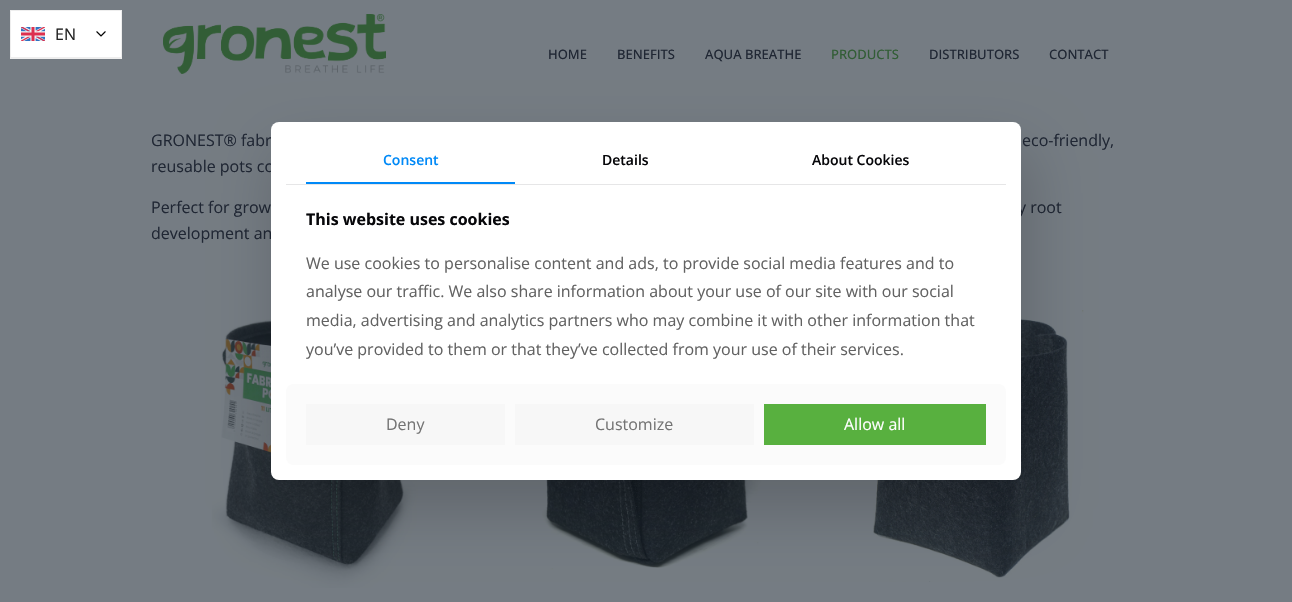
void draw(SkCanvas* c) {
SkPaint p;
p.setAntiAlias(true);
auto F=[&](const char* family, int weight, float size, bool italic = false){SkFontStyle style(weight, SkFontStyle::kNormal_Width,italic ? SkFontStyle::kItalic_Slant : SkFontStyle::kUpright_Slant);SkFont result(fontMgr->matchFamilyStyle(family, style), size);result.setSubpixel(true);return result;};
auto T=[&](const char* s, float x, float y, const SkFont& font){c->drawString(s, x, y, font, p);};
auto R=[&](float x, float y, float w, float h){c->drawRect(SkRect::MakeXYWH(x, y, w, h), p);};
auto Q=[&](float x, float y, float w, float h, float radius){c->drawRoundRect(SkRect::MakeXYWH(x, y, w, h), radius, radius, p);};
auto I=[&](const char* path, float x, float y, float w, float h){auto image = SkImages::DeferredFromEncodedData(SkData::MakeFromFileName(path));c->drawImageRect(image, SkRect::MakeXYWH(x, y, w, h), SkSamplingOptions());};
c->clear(0xff757c83);
p.setColor(0xffeeeeee);
R(10,58,112,1);
p.setColor(0xffffffff);
c->drawRect(SkRect::MakeXYWH(10.5,10.5,111,47),p);
p.setStroke(true);
p.setStrokeWidth(1);
p.setColor(0xffeeeeee);
c->drawRect(SkRect::MakeXYWH(10.5,10.5,111,47),p);
I("1.png",21,27,24,14);
auto f1 = F("Open Sans",400,16);
p.setStroke(false);
p.setColor(0xff222222);
T("EN",55,40,f1);
I("2.png",96,31,10,6);
I("3.png",163,14,223,60);
auto f2 = F("Open Sans",500,13);
p.setColor(0xff202734);
T("HOME",548,59,f2);
T("BENEFITS",617,59,f2);
T("AQUA BREATHE",705,59,f2);
p.setColor(0xff325d36);
T("PRODUCTS",831,59,f2);
p.setColor(0xff202734);
T("DISTRIBUTORS",929,59,f2);
T("CONTACT",1049,59,f2);
T("GRONEST® fabr",151,146,f1);
T("eco-friendly,",1022,146,f1);
T("reusable pots co",151,172,f1);
T("Perfect for grow",151,213,f1);
T("y root",1018,213,f1);
T("development an",151,239,f1);
I("4.png",212,316,207,272);
I("5.png",542,480,226,90);
I("6.png",873,310,211,272);
p.setColor(0x2e000000);
p.setMaskFilter(SkMaskFilter::MakeBlur(kNormal_SkBlurStyle, 30));
c->drawRoundRect(SkRect::MakeXYWH(277,152,750,358),8,8,p);
p.setMaskFilter(nullptr);
p.setColor(0xffffffff);
Q(271,122,750,358,8);
p.setColor(0xffe6e6e7);
R(286,184,720,1);
auto f3 = F("Open Sans",600,14);
p.setColor(0xff0089f7);
T("Consent",383,165,f3);
R(306,182,209,2);
p.setColor(0xff07070a);
T("Details",602,165,f3);
T("About Cookies",812,165,f3);
auto f4 = F("Open Sans",700,16);
T("This website uses cookies",306,225,f4);
p.setColor(0xff626262);
T("We use cookies to personalise content and ads, to provide social media features and to",306,269,f1);
T("analyse our traffic. We also share information about your use of our site with our social",306,297,f1);
T("media, advertising and analytics partners who may combine it with other information that",306,326,f1);
T("you’ve provided to them or that they’ve collected from your use of their services.",306,355,f1);
p.setColor(0xfffbfbfb);
Q(286,384,720,81,8);
p.setColor(0xfff7f7f7);
R(306,404,199,41);
p.setColor(0xff747474);
T("Deny",386,430,f1);
p.setColor(0xfff7f7f7);
R(515,404,239,41);
p.setColor(0xff747474);
T("Customize",595,430,f1);
p.setColor(0xff58b03f);
R(764,404,222,41);
p.setColor(0xffffffff);
T("Allow all",844,430,f1);
}
